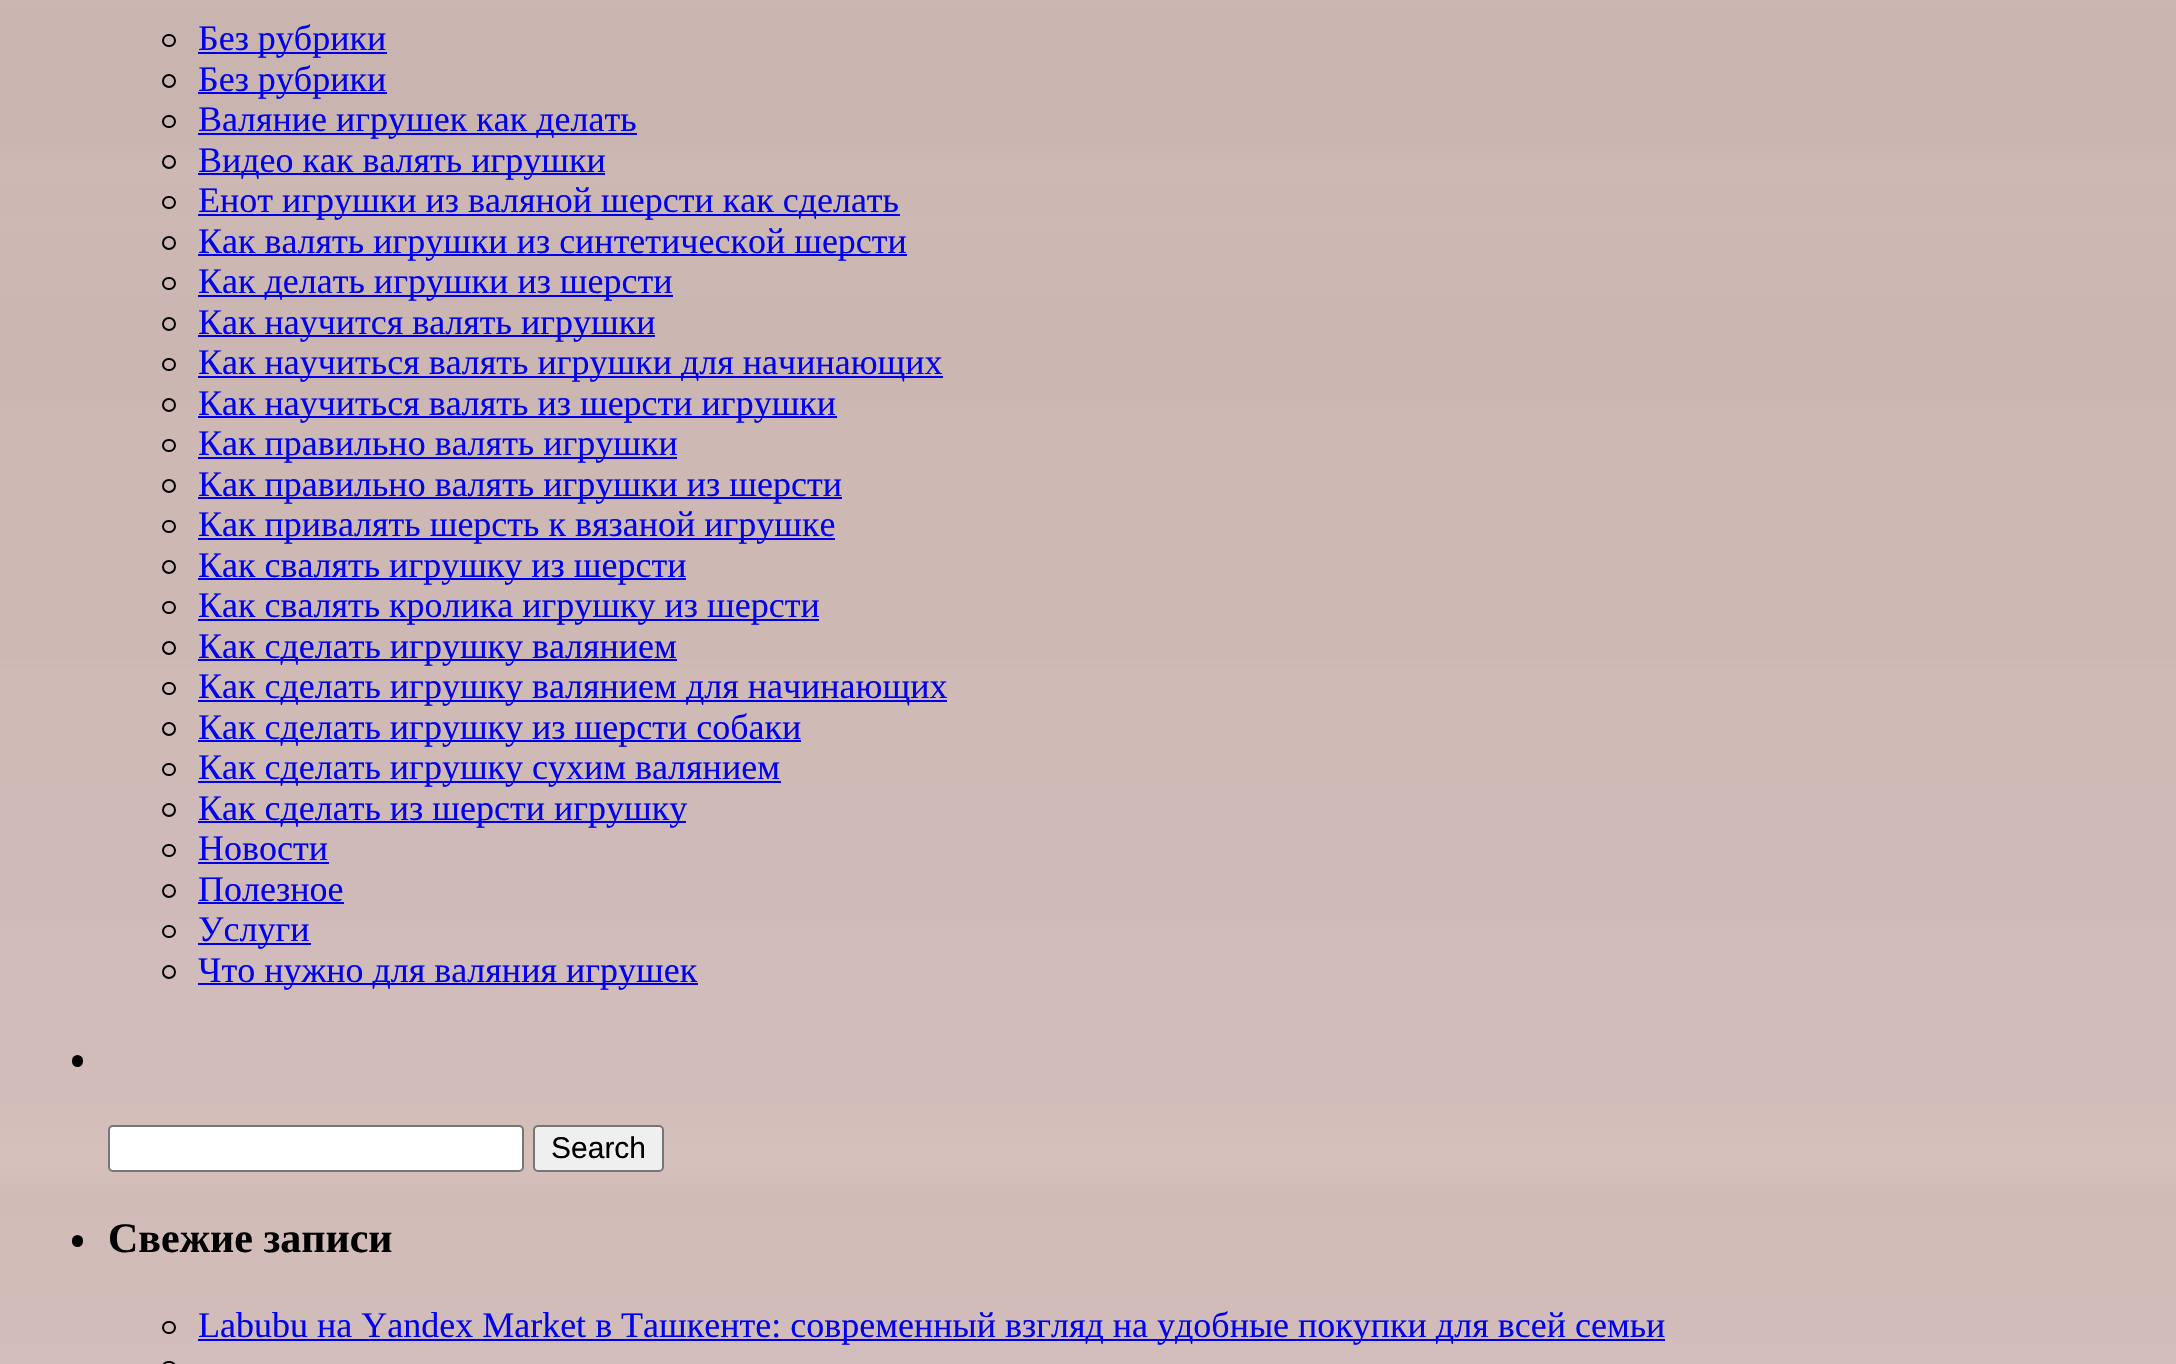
void draw(SkCanvas* c) {
SkPaint p;
p.setAntiAlias(true);
auto F=[&](const char* family, int weight, float size, bool italic = false){SkFontStyle style(weight, SkFontStyle::kNormal_Width,italic ? SkFontStyle::kItalic_Slant : SkFontStyle::kUpright_Slant);SkFont result(fontMgr->matchFamilyStyle(family, style), size);result.setSubpixel(true);return result;};
auto T=[&](const char* s, float x, float y, const SkFont& font){c->drawString(s, x, y, font, p);};
auto R=[&](float x, float y, float w, float h){c->drawRect(SkRect::MakeXYWH(x, y, w, h), p);};
auto Q=[&](float x, float y, float w, float h, float radius){c->drawRoundRect(SkRect::MakeXYWH(x, y, w, h), radius, radius, p);};
auto I=[&](const char* path, float x, float y, float w, float h){auto image = SkImages::DeferredFromEncodedData(SkData::MakeFromFileName(path));c->drawImageRect(image, SkRect::MakeXYWH(x, y, w, h), SkSamplingOptions());};
c->clear(0xffffffff);
I("1.png",0,0,2176,1364);
p.setStroke(true);
p.setStrokeWidth(2);
p.setColor(0xff000000);
c->drawRoundRect(SkRect::MakeXYWH(163,35,12,11),5.5,5.5,p);
p.setStroke(false);
p.setColor(0xff0000ee);
R(198,52,189,2);
auto f1 = F("Liberation Serif",400,36);
T("Без рубрики",198,50,f1);
p.setStroke(true);
p.setColor(0xff000000);
c->drawCircle(169,81,6,p);
p.setStroke(false);
p.setColor(0xff0000ee);
R(198,92,189,2);
T("Без рубрики",198,91,f1);
p.setStroke(true);
p.setColor(0xff000000);
c->drawRoundRect(SkRect::MakeXYWH(163,116,12,11),5.5,5.5,p);
p.setStroke(false);
p.setColor(0xff0000ee);
R(198,133,439,2);
T("Валяние игрушек как делать",198,131,f1);
p.setStroke(true);
p.setColor(0xff000000);
c->drawCircle(169,162,6,p);
p.setStroke(false);
p.setColor(0xff0000ee);
R(198,173,407,2);
T("Видео как валять игрушки",198,172,f1);
p.setStroke(true);
p.setColor(0xff000000);
c->drawRoundRect(SkRect::MakeXYWH(163,197,12,11),5.5,5.5,p);
p.setStroke(false);
p.setColor(0xff0000ee);
R(198,214,702,2);
T("Енот игрушки из валяной шерсти как сделать",198,212,f1);
p.setStroke(true);
p.setColor(0xff000000);
c->drawCircle(169,243,6,p);
p.setStroke(false);
p.setColor(0xff0000ee);
R(198,254,709,2);
T("Как валять игрушки из синтетической шерсти",198,253,f1);
p.setStroke(true);
p.setColor(0xff000000);
c->drawRoundRect(SkRect::MakeXYWH(163,278,12,11),5.5,5.5,p);
p.setStroke(false);
p.setColor(0xff0000ee);
R(198,295,475,2);
T("Как делать игрушки из шерсти",198,293,f1);
p.setStroke(true);
p.setColor(0xff000000);
c->drawCircle(169,324,6,p);
p.setStroke(false);
p.setColor(0xff0000ee);
R(198,335,457,2);
T("Как научится валять игрушки",198,334,f1);
p.setStroke(true);
p.setColor(0xff000000);
c->drawRoundRect(SkRect::MakeXYWH(163,359,12,11),5.5,5.5,p);
p.setStroke(false);
p.setColor(0xff0000ee);
R(198,376,745,2);
T("Как научиться валять игрушки для начинающих",198,374,f1);
p.setStroke(true);
p.setColor(0xff000000);
c->drawCircle(169,405,6,p);
p.setStroke(false);
p.setColor(0xff0000ee);
R(198,416,639,2);
T("Как научиться валять из шерсти игрушки",198,415,f1);
p.setStroke(true);
p.setColor(0xff000000);
c->drawRoundRect(SkRect::MakeXYWH(163,440,12,11),5.5,5.5,p);
p.setStroke(false);
p.setColor(0xff0000ee);
R(198,457,479,2);
T("Как правильно валять игрушки",198,455,f1);
p.setStroke(true);
p.setColor(0xff000000);
c->drawCircle(169,486,6,p);
p.setStroke(false);
p.setColor(0xff0000ee);
R(198,497,644,2);
T("Как правильно валять игрушки из шерсти",198,496,f1);
p.setStroke(true);
p.setColor(0xff000000);
c->drawRoundRect(SkRect::MakeXYWH(163,521,12,11),5.5,5.5,p);
p.setStroke(false);
p.setColor(0xff0000ee);
R(198,538,637,2);
T("Как привалять шерсть к вязаной игрушке",198,536,f1);
p.setStroke(true);
p.setColor(0xff000000);
c->drawCircle(169,567,6,p);
p.setStroke(false);
p.setColor(0xff0000ee);
R(198,578,488,2);
T("Как свалять игрушку из шерсти",198,577,f1);
p.setStroke(true);
p.setColor(0xff000000);
c->drawRoundRect(SkRect::MakeXYWH(163,602,12,11),5.5,5.5,p);
p.setStroke(false);
p.setColor(0xff0000ee);
R(198,619,621,2);
T("Как свалять кролика игрушку из шерсти",198,617,f1);
p.setStroke(true);
p.setColor(0xff000000);
c->drawCircle(169,648,6,p);
p.setStroke(false);
p.setColor(0xff0000ee);
R(198,659,479,2);
T("Как сделать игрушку валянием",198,658,f1);
p.setStroke(true);
p.setColor(0xff000000);
c->drawRoundRect(SkRect::MakeXYWH(163,683,12,11),5.5,5.5,p);
p.setStroke(false);
p.setColor(0xff0000ee);
R(198,700,749,2);
T("Как сделать игрушку валянием для начинающих",198,698,f1);
p.setStroke(true);
p.setColor(0xff000000);
c->drawCircle(169,729,6,p);
p.setStroke(false);
p.setColor(0xff0000ee);
R(198,740,603,2);
T("Как сделать игрушку из шерсти собаки",198,739,f1);
p.setStroke(true);
p.setColor(0xff000000);
c->drawRoundRect(SkRect::MakeXYWH(163,764,12,11),5.5,5.5,p);
p.setStroke(false);
p.setColor(0xff0000ee);
R(198,781,583,2);
T("Как сделать игрушку сухим валянием",198,779,f1);
p.setStroke(true);
p.setColor(0xff000000);
c->drawCircle(169,810,6,p);
p.setStroke(false);
p.setColor(0xff0000ee);
R(198,821,488,2);
T("Как сделать из шерсти игрушку",198,820,f1);
p.setStroke(true);
p.setColor(0xff000000);
c->drawRoundRect(SkRect::MakeXYWH(163,845,12,11),5.5,5.5,p);
p.setStroke(false);
p.setColor(0xff0000ee);
T("Новости",198,860,f1);
R(198,862,131,2);
p.setStroke(true);
p.setColor(0xff000000);
c->drawCircle(169,891,6,p);
p.setStroke(false);
p.setColor(0xff0000ee);
T("Полезное",198,901,f1);
R(198,902,146,2);
p.setStroke(true);
p.setColor(0xff000000);
c->drawRoundRect(SkRect::MakeXYWH(163,926,12,11),5.5,5.5,p);
p.setStroke(false);
p.setColor(0xff0000ee);
R(198,943,113,2);
T("Услуги",198,941,f1);
p.setStroke(true);
p.setColor(0xff000000);
c->drawCircle(169,972,6,p);
p.setStroke(false);
p.setColor(0xff0000ee);
R(198,983,500,2);
T("Что нужно для валяния игрушек",198,982,f1);
p.setColor(0xff000000);
Q(72,1055,11,12,5.5);
p.setColor(0xffffffff);
c->drawRoundRect(SkRect::MakeXYWH(109,1126,414,45),4,4,p);
p.setStroke(true);
p.setColor(0xff767676);
c->drawRoundRect(SkRect::MakeXYWH(109,1126,414,45),4,4,p);
p.setStroke(false);
p.setColor(0xffefefef);
c->drawRoundRect(SkRect::MakeXYWH(534,1126,129,45),4,4,p);
p.setStroke(true);
p.setColor(0xff767676);
c->drawRoundRect(SkRect::MakeXYWH(534,1126,129,45),4,4,p);
auto f2 = F("Liberation Sans",400,30);
p.setStroke(false);
p.setColor(0xff000000);
T("Search",551,1158,f2);
Q(72,1235,11,12,5.5);
auto f3 = F("Liberation Serif",700,42);
T("Свежие записи",108,1252,f3);
p.setStroke(true);
c->drawRoundRect(SkRect::MakeXYWH(163,1322,12,11),5.5,5.5,p);
p.setStroke(false);
p.setColor(0xff0000ee);
R(198,1339,1467,2);
T("Labubu на Yandex Market в Ташкенте: современный взгляд на удобные покупки для всей семьи",198,1337,f1);
p.setStroke(true);
p.setColor(0xff000000);
c->drawRoundRect(SkRect::MakeXYWH(163,1362,12,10),6,6,p);
}
